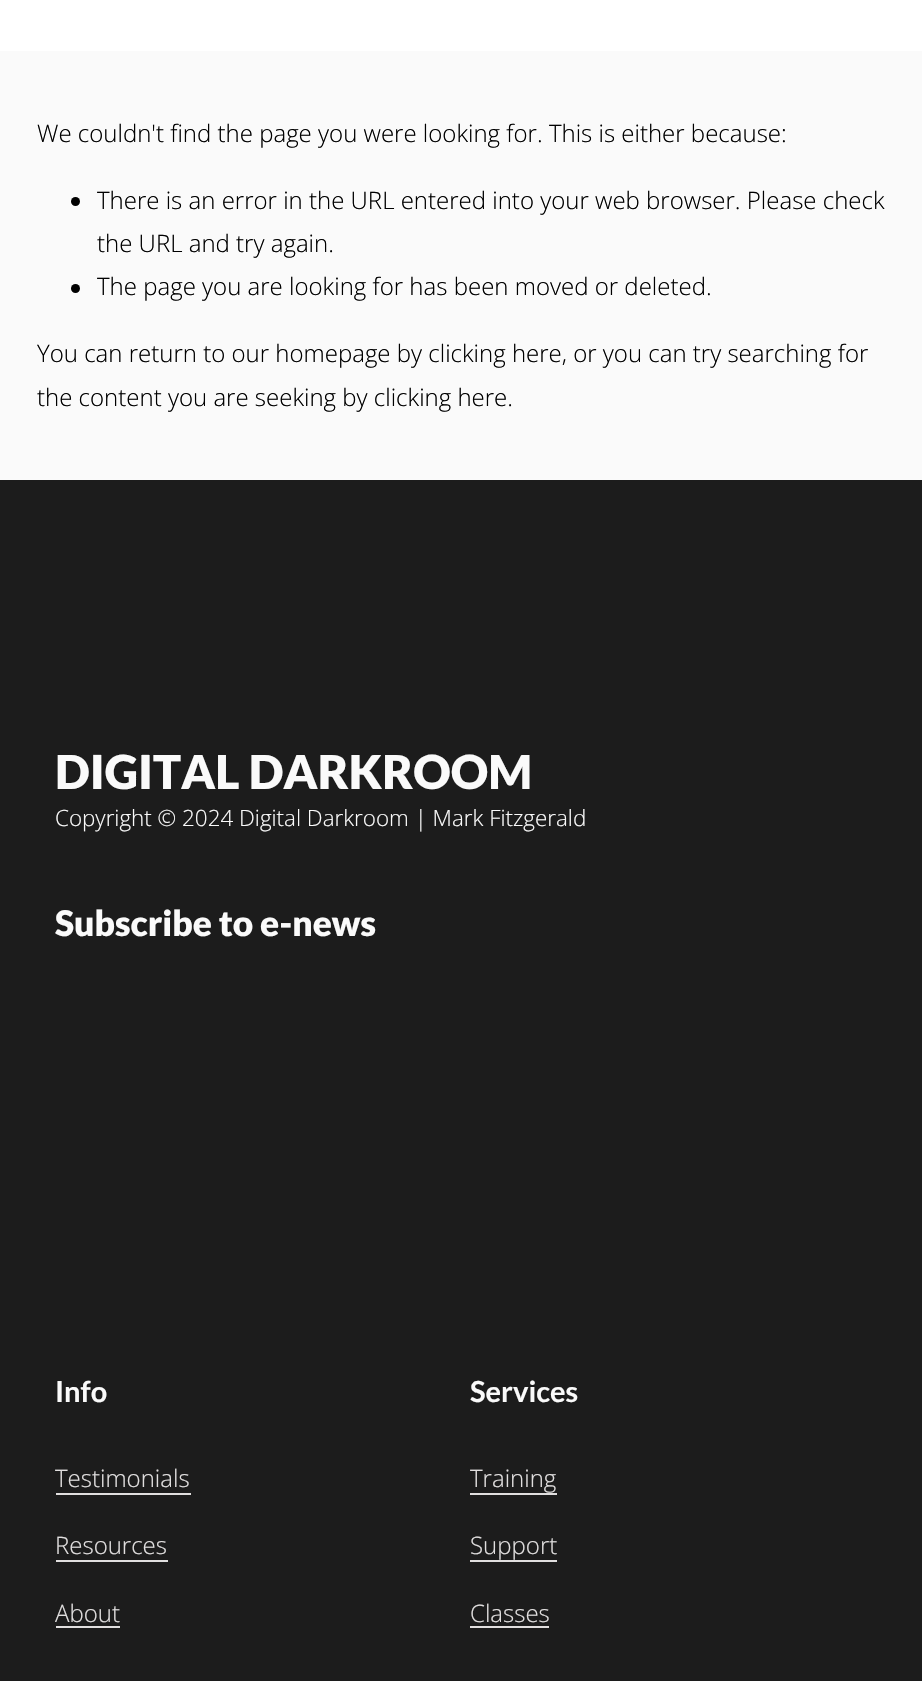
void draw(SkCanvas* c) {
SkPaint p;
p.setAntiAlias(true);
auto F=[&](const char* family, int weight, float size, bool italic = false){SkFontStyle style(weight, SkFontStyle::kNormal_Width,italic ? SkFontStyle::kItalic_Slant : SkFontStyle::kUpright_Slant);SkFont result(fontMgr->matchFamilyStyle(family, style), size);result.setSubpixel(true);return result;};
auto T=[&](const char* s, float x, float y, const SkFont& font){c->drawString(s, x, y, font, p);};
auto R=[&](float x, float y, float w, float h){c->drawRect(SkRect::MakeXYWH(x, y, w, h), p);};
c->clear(0xfffafafa);
p.setColor(0xffffffff);
R(0,0,922,51);
auto f1 = F("Open Sans",300,24);
p.setColor(0xff000000);
T("We couldn't find the page you were looking for. This is either because:",37,142,f1);
c->drawCircle(75.5,201.5,4.5,p);
T("There is an error in the URL entered into your web browser. Please check",97,209,f1);
T("the URL and try again.",97,252,f1);
c->drawCircle(75.5,288.5,4.5,p);
T("The page you are looking for has been moved or deleted.",97,295,f1);
T("You can return to our homepage by clicking here, or you can try searching for",37,362,f1);
T("the content you are seeking by clicking here.",37,406,f1);
p.setColor(0xff1c1c1c);
R(0,480,922,1201);
auto f2 = F("Lato",900,46.75);
p.setColor(0xfffafafa);
T("DIGITAL DARKROOM",55,789,f2);
auto f3 = F("Open Sans",300,22.4);
T("Copyright © 2024 Digital Darkroom | Mark Fitzgerald",55,826,f3);
auto f4 = F("Lato",900,35.25);
T("Subscribe to e-news",55,936,f4);
auto f5 = F("Lato",700,29);
T("Info",55,1402,f5);
p.setColor(0xffe1dfdf);
T("Testimonials",55,1487,f1);
R(56,1493,135,2);
T("Resources",55,1554,f1);
R(56,1560,112,2);
T("About",55,1622,f1);
R(56,1626,64,2);
p.setColor(0xfffafafa);
T("Services",470,1402,f5);
p.setColor(0xffe1dfdf);
T("Training",470,1487,f1);
R(470,1493,87,2);
T("Support",470,1554,f1);
R(470,1560,87,2);
T("Classes",470,1622,f1);
R(470,1626,79,2);
}
